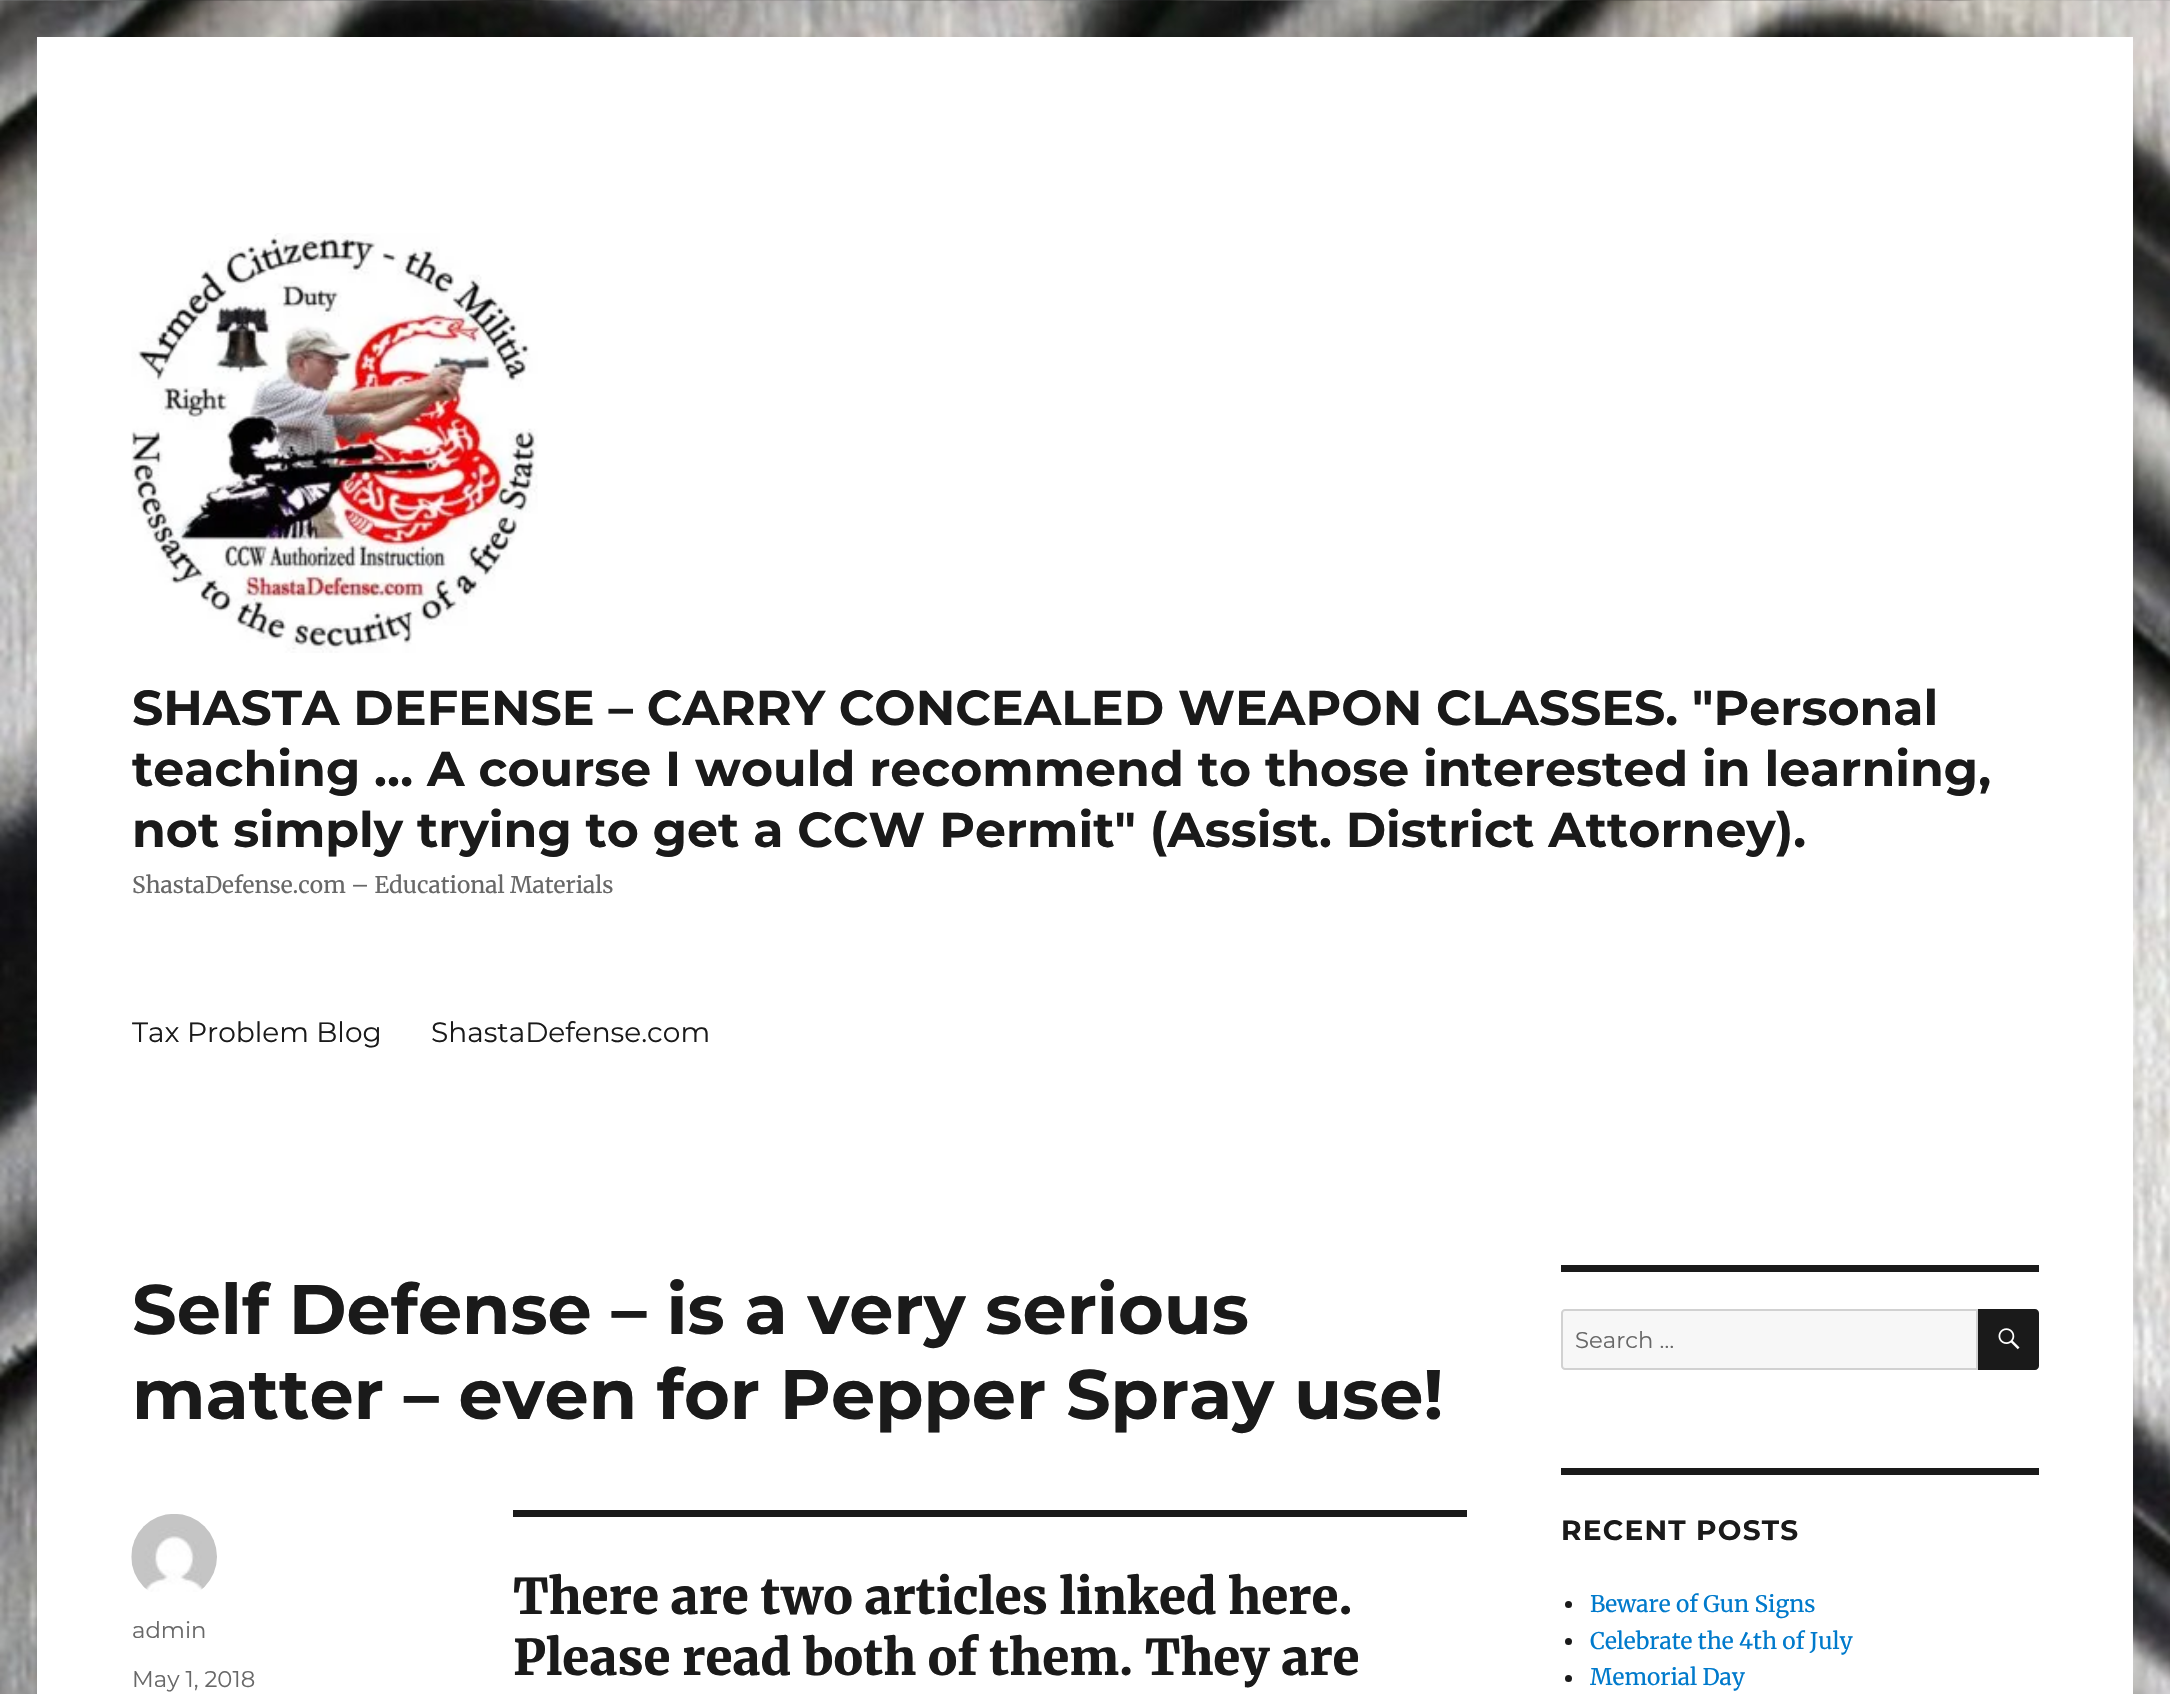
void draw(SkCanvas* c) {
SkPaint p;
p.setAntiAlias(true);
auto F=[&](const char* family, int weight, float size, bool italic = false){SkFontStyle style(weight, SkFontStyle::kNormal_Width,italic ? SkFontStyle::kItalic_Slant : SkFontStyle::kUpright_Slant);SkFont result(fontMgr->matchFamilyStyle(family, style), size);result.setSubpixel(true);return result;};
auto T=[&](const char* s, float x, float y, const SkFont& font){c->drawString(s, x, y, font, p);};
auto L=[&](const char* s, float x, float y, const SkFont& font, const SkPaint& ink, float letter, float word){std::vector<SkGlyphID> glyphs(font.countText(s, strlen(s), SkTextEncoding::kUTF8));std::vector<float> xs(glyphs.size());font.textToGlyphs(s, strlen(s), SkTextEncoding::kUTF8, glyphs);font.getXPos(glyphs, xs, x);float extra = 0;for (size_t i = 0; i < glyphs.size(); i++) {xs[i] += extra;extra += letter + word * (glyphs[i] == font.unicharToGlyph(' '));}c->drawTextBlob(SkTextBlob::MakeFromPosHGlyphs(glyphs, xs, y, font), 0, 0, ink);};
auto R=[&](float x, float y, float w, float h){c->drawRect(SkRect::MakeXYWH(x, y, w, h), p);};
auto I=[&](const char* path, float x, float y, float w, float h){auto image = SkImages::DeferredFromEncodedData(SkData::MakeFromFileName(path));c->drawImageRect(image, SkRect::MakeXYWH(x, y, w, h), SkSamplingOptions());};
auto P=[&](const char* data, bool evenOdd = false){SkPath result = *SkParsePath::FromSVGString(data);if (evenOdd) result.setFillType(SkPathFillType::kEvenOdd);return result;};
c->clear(0xffffffff);
I("1.png",0,0,2170,1694);
p.setColor(0xffffffff);
R(37,37,2096,1657);
I("2.png",131,233,407,420);
auto f1 = F("Montserrat",700,49);
p.setColor(0xff1a1a1a);
T("SHASTA DEFENSE – CARRY CONCEALED WEAPON CLASSES. \"Personal",132,725,f1);
T("teaching … A course I would recommend to those interested in learning,",132,786,f1);
T("not simply trying to get a CCW Permit\" (Assist. District Attorney).",132,847,f1);
auto f2 = F("Merriweather",400,22.75);
p.setColor(0xff686868);
T("ShastaDefense.com – Educational Materials",132,893,f2);
auto f3 = F("Montserrat",400,28);
p.setColor(0xff1a1a1a);
T("Tax Problem Blog",132,1042,f3);
T("ShastaDefense.com",431,1042,f3);
auto f4 = F("Montserrat",700,70);
T("Self Defense – is a very serious",132,1334,f4);
T("matter – even for Pepper Spray use!",132,1419,f4);
I("3.png",131,1514,86,78);
auto f5 = F("Montserrat",400,22.75);
p.setColor(0xff686868);
T("admin",132,1638,f5);
T("May 1, 2018",132,1687,f5);
p.setColor(0xff1a1a1a);
R(513,1510,954,7);
auto f6 = F("Merriweather",900,49);
T("There are two articles linked here.",513,1614,f6);
T("Please read both of them. They are",513,1675,f6);
R(1561,1265,478,7);
p.setColor(0xfff7f7f7);
c->drawPath(P("M1565 1310h412v59h-412c-1.5 0-3-1.5-3-3v-53c0-1.5 1.5-3 3-3z"),p);
p.setStroke(true);
p.setStrokeWidth(2);
p.setColor(0xffd1d1d1);
c->drawPath(P("M1565 1310h412v59h-412c-1.5 0-3-1.5-3-3v-53c0-1.5 1.5-3 3-3z"),p);
p.setStroke(false);
p.setColor(0xff686868);
T("Search …",1575,1348,f5);
p.setColor(0xff1a1a1a);
c->drawPath(P("M1978 1309h57c2 0 4 2 4 4v53c0 2-2 4-4 4h-57z"),p);
I("4.png",1998,1328,22,22);
R(1561,1468,478,7);
auto f7 = F("Montserrat",700,28);
L("RECENT POSTS",1561,1540,f7,p,1.25,0);
c->drawCircle(1568.5,1604.5,3.5,p);
p.setColor(0xff007acc);
T("Beware of Gun Signs",1590,1612,f2);
p.setColor(0xff1a1a1a);
c->drawCircle(1568.5,1641.5,3.5,p);
p.setColor(0xff007acc);
T("Celebrate the 4th of July",1590,1649,f2);
p.setColor(0xff1a1a1a);
c->drawCircle(1568.5,1678.5,3.5,p);
p.setColor(0xff007acc);
T("Memorial Day",1590,1685,f2);
}
